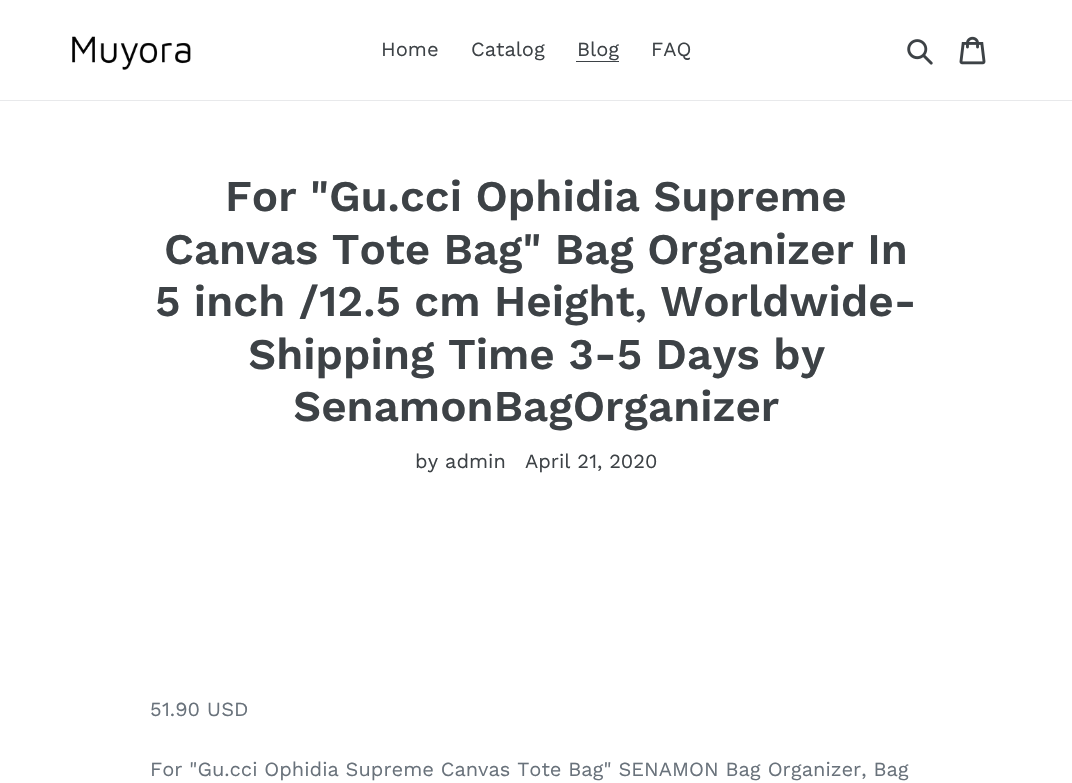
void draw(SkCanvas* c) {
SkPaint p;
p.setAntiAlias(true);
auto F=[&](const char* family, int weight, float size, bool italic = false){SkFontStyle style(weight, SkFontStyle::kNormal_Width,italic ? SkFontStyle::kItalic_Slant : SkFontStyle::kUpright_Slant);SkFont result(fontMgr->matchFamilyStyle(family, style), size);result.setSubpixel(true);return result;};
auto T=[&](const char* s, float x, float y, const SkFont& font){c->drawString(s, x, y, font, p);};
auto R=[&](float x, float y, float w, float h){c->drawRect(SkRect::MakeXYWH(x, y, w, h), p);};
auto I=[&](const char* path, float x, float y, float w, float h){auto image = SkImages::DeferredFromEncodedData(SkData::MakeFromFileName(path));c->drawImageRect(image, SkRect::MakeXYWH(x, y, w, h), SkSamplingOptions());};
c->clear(0xffffffff);
p.setColor(0xffe8e9eb);
R(0,100,1072,1);
I("1.png",72,36,119,34);
auto f1 = F("Work Sans",400,20);
p.setColor(0xff3d4246);
T("Home",381,56,f1);
T("Catalog",471,56,f1);
T("Blog",577,56,f1);
R(576,61,43,1);
T("FAQ",651,56,f1);
I("2.png",907,39,26,26);
I("3.png",959,36,27,29);
auto f2 = F("Work Sans",600,43.75);
T("For \"Gu.cci Ophidia Supreme",225,211,f2);
T("Canvas Tote Bag\" Bag Organizer In",164,264,f2);
T("5 inch /12.5 cm Height, Worldwide-",155,316,f2);
T("Shipping Time 3-5 Days by",248,369,f2);
T("SenamonBagOrganizer",293,421,f2);
T("by admin",415,468,f1);
T("April 21, 2020",525,468,f1);
p.setColor(0xff69727b);
T("51.90 USD",150,716,f1);
T("For \"Gu.cci Ophidia Supreme Canvas Tote Bag\" SENAMON Bag Organizer, Bag",150,776,f1);
}
